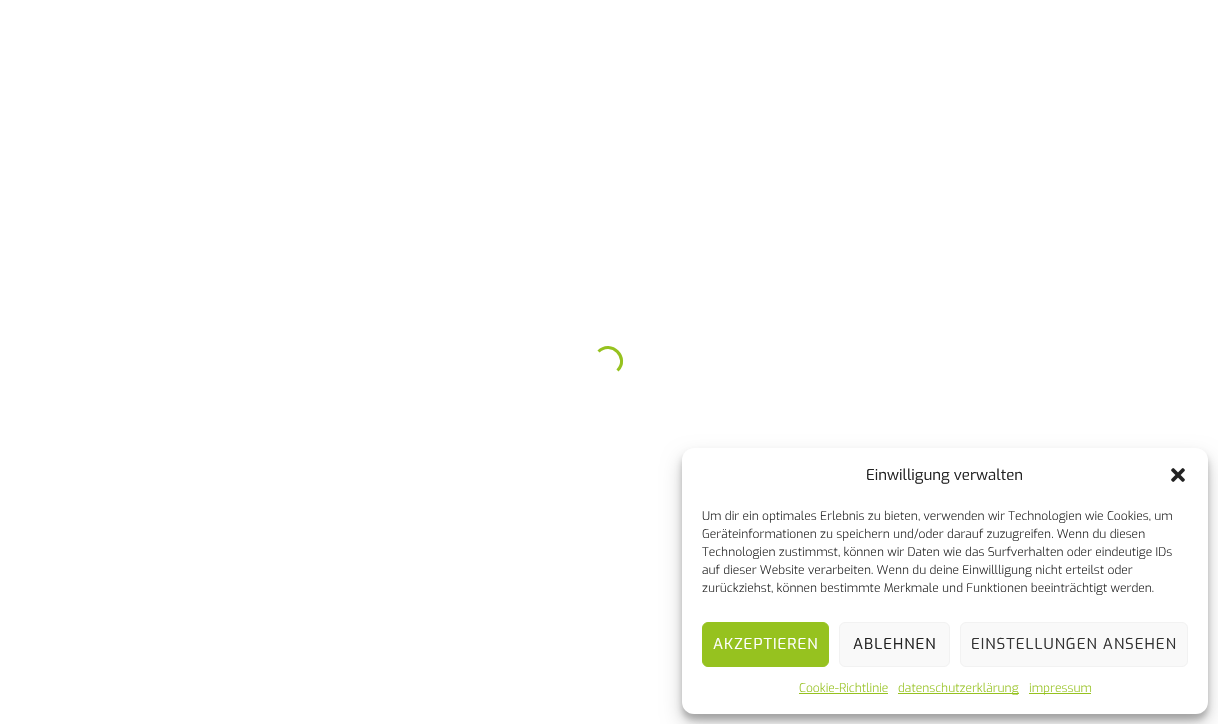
void draw(SkCanvas* c) {
SkPaint p;
p.setAntiAlias(true);
auto F=[&](const char* family, int weight, float size, bool italic = false){SkFontStyle style(weight, SkFontStyle::kNormal_Width,italic ? SkFontStyle::kItalic_Slant : SkFontStyle::kUpright_Slant);SkFont result(fontMgr->matchFamilyStyle(family, style), size);result.setSubpixel(true);return result;};
auto T=[&](const char* s, float x, float y, const SkFont& font){c->drawString(s, x, y, font, p);};
auto L=[&](const char* s, float x, float y, const SkFont& font, const SkPaint& ink, float letter, float word){std::vector<SkGlyphID> glyphs(font.countText(s, strlen(s), SkTextEncoding::kUTF8));std::vector<float> xs(glyphs.size());font.textToGlyphs(s, strlen(s), SkTextEncoding::kUTF8, glyphs);font.getXPos(glyphs, xs, x);float extra = 0;for (size_t i = 0; i < glyphs.size(); i++) {xs[i] += extra;extra += letter + word * (glyphs[i] == font.unicharToGlyph(' '));}c->drawTextBlob(SkTextBlob::MakeFromPosHGlyphs(glyphs, xs, y, font), 0, 0, ink);};
auto R=[&](float x, float y, float w, float h){c->drawRect(SkRect::MakeXYWH(x, y, w, h), p);};
auto Q=[&](float x, float y, float w, float h, float radius){c->drawRoundRect(SkRect::MakeXYWH(x, y, w, h), radius, radius, p);};
auto I=[&](const char* path, float x, float y, float w, float h){auto image = SkImages::DeferredFromEncodedData(SkData::MakeFromFileName(path));c->drawImageRect(image, SkRect::MakeXYWH(x, y, w, h), SkSamplingOptions());};
auto P=[&](const char* data, bool evenOdd = false){SkPath result = *SkParsePath::FromSVGString(data);if (evenOdd) result.setFillType(SkPathFillType::kEvenOdd);return result;};
c->clear(0xffffffff);
p.setStroke(true);
p.setStrokeWidth(3);
p.setColor(0xff96c21f);
c->drawPath(P("M598.5 351.5c12.5-12.5 31.5 6.5 19 19"),p);
p.setStroke(false);
p.setColor(0x3b000000);
p.setMaskFilter(SkMaskFilter::MakeBlur(kNormal_SkBlurStyle, 3));
c->drawRoundRect(SkRect::MakeXYWH(682,454,526,266),12,12,p);
p.setMaskFilter(nullptr);
p.setColor(0x30000000);
p.setMaskFilter(SkMaskFilter::MakeBlur(kNormal_SkBlurStyle, 10));
c->drawRoundRect(SkRect::MakeXYWH(682,458,526,266),12,12,p);
p.setMaskFilter(nullptr);
p.setColor(0xffffffff);
Q(682,448,526,266,12);
auto f1 = F("Exo",400,15);
p.setColor(0xff222222);
T("Einwilligung verwalten",866,480,f1);
I("1.png",1171,468,14,14);
auto f2 = F("Exo",300,12);
T("Um dir ein optimales Erlebnis zu bieten, verwenden wir Technologien wie Cookies, um",702,520,f2);
T("Geräteinformationen zu speichern und/oder darauf zuzugreifen. Wenn du diesen",702,538,f2);
T("Technologien zustimmst, können wir Daten wie das Surfverhalten oder eindeutige IDs",702,556,f2);
T("auf dieser Website verarbeiten. Wenn du deine Einwillligung nicht erteilst oder",702,574,f2);
T("zurückziehst, können bestimmte Merkmale und Funktionen beeinträchtigt werden.",702,592,f2);
p.setColor(0xff96c21f);
c->drawRoundRect(SkRect::MakeXYWH(702.5,622.5,126,44),5.5,5.5,p);
p.setStroke(true);
p.setStrokeWidth(1);
c->drawRoundRect(SkRect::MakeXYWH(702.5,622.5,126,44),5.5,5.5,p);
p.setStroke(false);
p.setColor(0xffffffff);
L("AKZEPTIEREN",713,649,f1,p,1,0);
p.setColor(0xfff9f9f9);
c->drawRoundRect(SkRect::MakeXYWH(839.5,622.5,110,44),5.5,5.5,p);
p.setStroke(true);
p.setColor(0xfff2f2f2);
c->drawRoundRect(SkRect::MakeXYWH(839.5,622.5,110,44),5.5,5.5,p);
p.setStroke(false);
p.setColor(0xff222222);
L("ABLEHNEN",853,649,f1,p,1,0);
p.setColor(0xfff9f9f9);
c->drawRoundRect(SkRect::MakeXYWH(960.5,622.5,227,44),5.5,5.5,p);
p.setStroke(true);
p.setColor(0xfff2f2f2);
c->drawRoundRect(SkRect::MakeXYWH(960.5,622.5,227,44),5.5,5.5,p);
p.setStroke(false);
p.setColor(0xff333333);
L("EINSTELLUNGEN ANSEHEN",971,649,f1,p,1,0);
p.setColor(0xff96c21f);
T("Cookie-Richtlinie",799,692,f2);
R(799,693,89,1);
R(898,693,121,1);
T("datenschutzerklärung",898,692,f2);
R(1029,693,62,1);
T("impressum",1029,692,f2);
}
